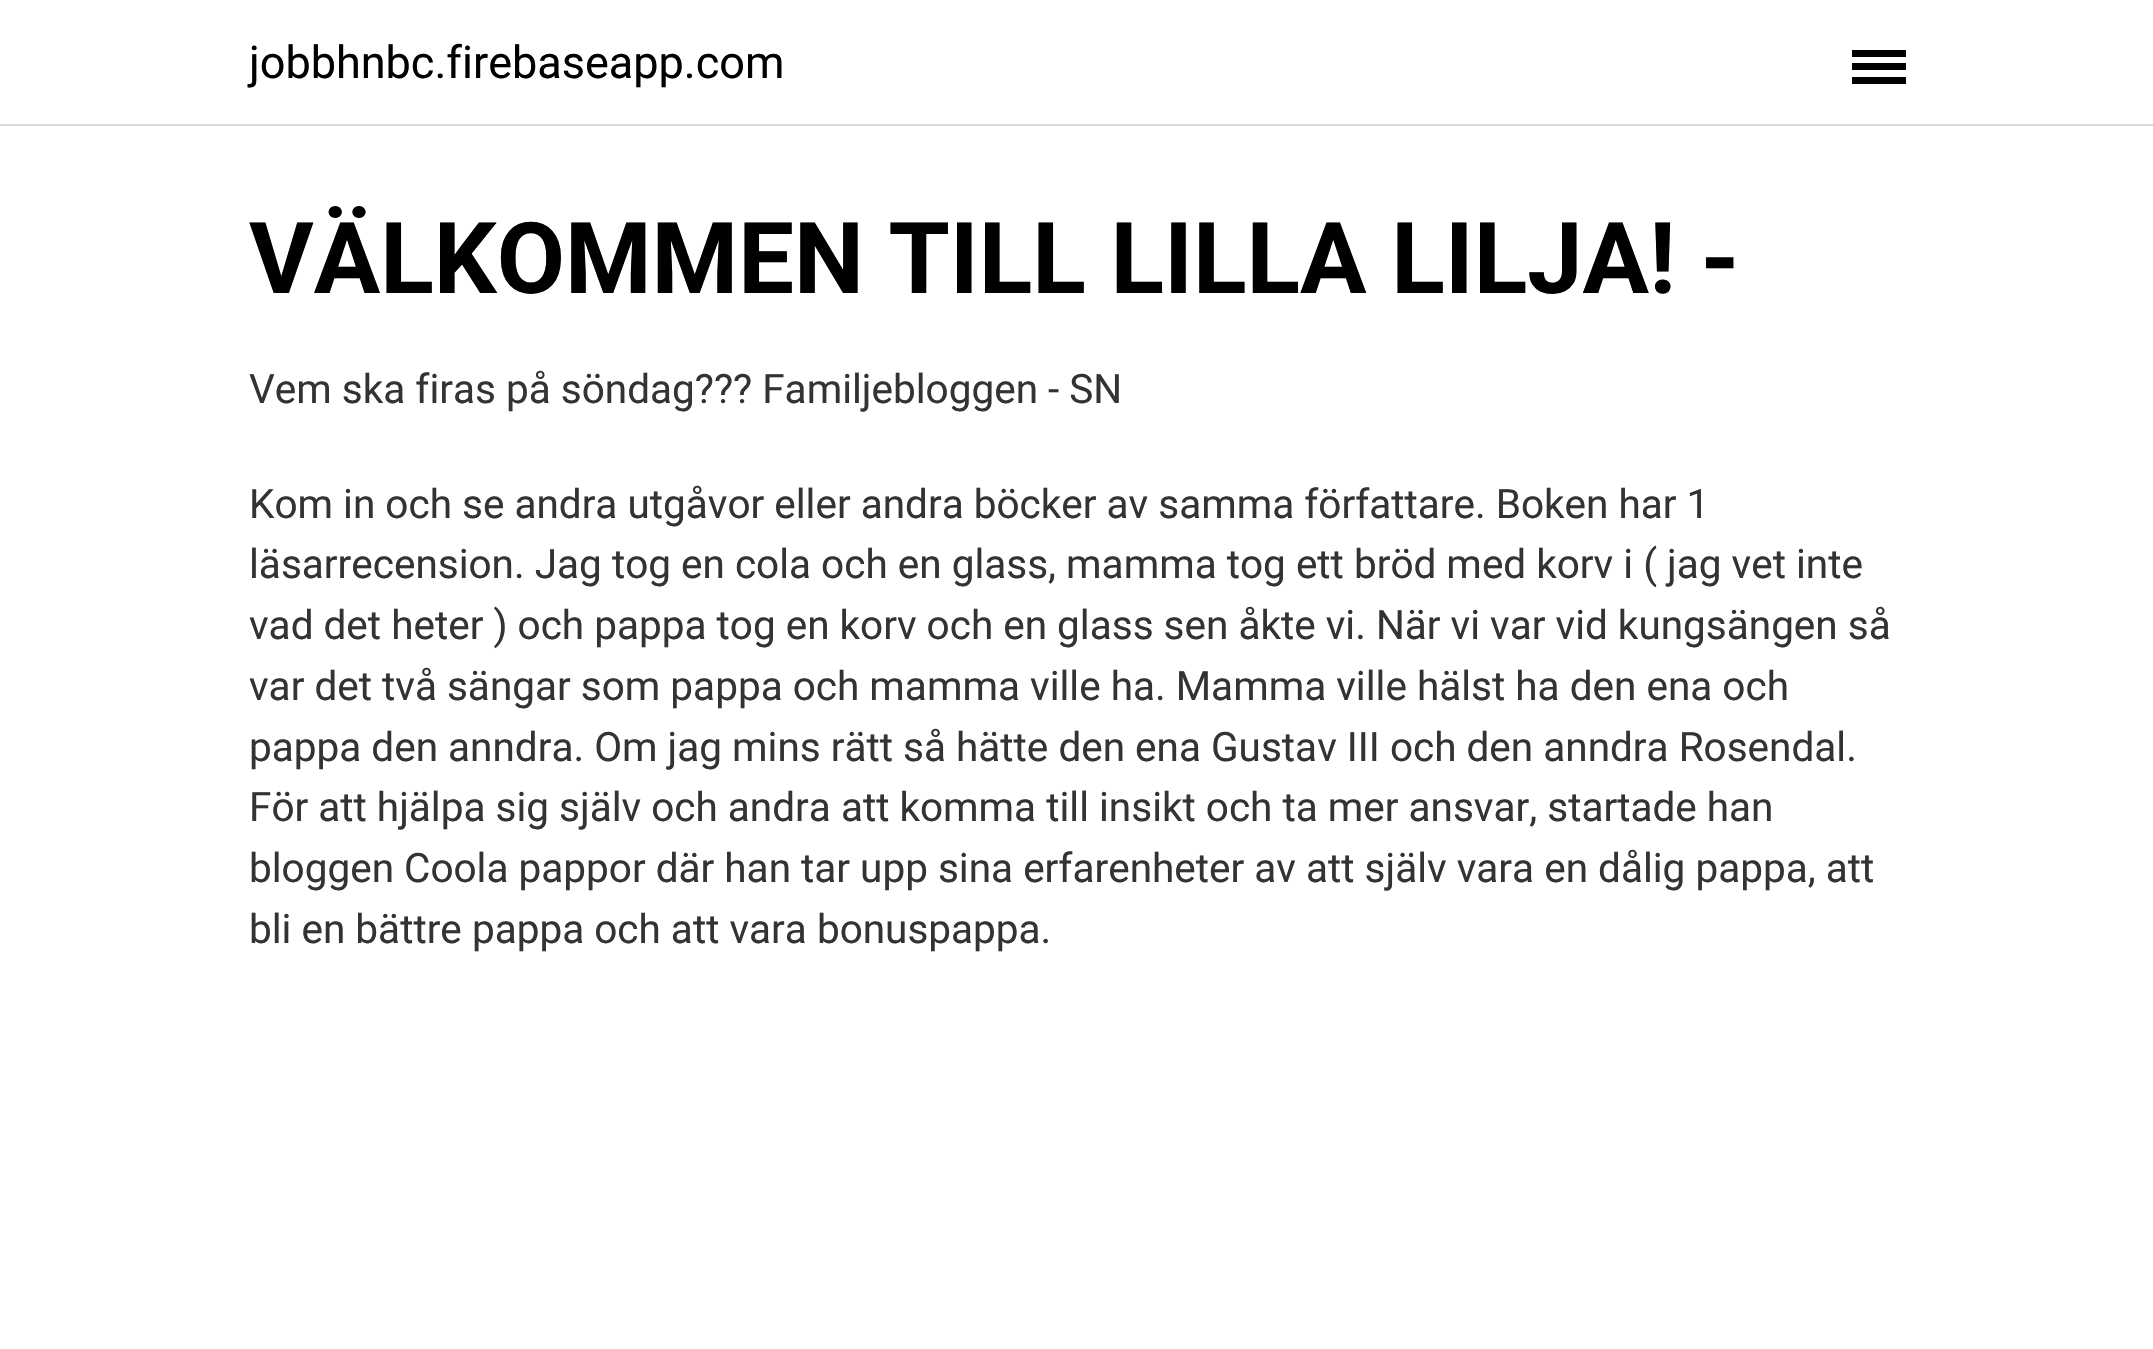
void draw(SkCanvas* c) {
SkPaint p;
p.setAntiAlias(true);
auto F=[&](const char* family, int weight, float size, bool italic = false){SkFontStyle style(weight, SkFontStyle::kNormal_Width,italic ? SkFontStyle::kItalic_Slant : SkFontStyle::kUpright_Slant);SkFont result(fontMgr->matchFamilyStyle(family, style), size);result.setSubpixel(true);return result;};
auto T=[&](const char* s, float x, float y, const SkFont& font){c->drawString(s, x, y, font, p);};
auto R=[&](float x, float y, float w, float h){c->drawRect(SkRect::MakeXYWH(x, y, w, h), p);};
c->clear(0xffffffff);
p.setColor(0xffdbdbdb);
R(0,124,2153,2);
auto f1 = F("Roboto",400,45);
p.setColor(0xff000000);
T("jobbhnbc.firebaseapp.com",249,78,f1);
R(1852,63,54,7);
R(1852,50,54,7);
R(1852,77,54,7);
auto f2 = F("Roboto",700,99);
T("VÄLKOMMEN TILL LILLA LILJA! -",249,293,f2);
auto f3 = F("Roboto",400,40.5);
p.setColor(0xff333333);
T("Vem ska firas på söndag?\077? Familjebloggen - SN",249,403,f3);
T("Kom in och se andra utgåvor eller andra böcker av samma författare. Boken har 1",249,518,f3);
T("läsarrecension. Jag tog en cola och en glass, mamma tog ett bröd med korv i ( jag vet inte",249,578,f3);
T("vad det heter ) och pappa tog en korv och en glass sen åkte vi. När vi var vid kungsängen så",249,639,f3);
T("var det två sängar som pappa och mamma ville ha. Mamma ville hälst ha den ena och",249,700,f3);
T("pappa den anndra. Om jag mins rätt så hätte den ena Gustav III och den anndra Rosendal.",249,761,f3);
T("För att hjälpa sig själv och andra att komma till insikt och ta mer ansvar, startade han",249,821,f3);
T("bloggen Coola pappor där han tar upp sina erfarenheter av att själv vara en dålig pappa, att",249,882,f3);
T("bli en bättre pappa och att vara bonuspappa.",249,943,f3);
}
